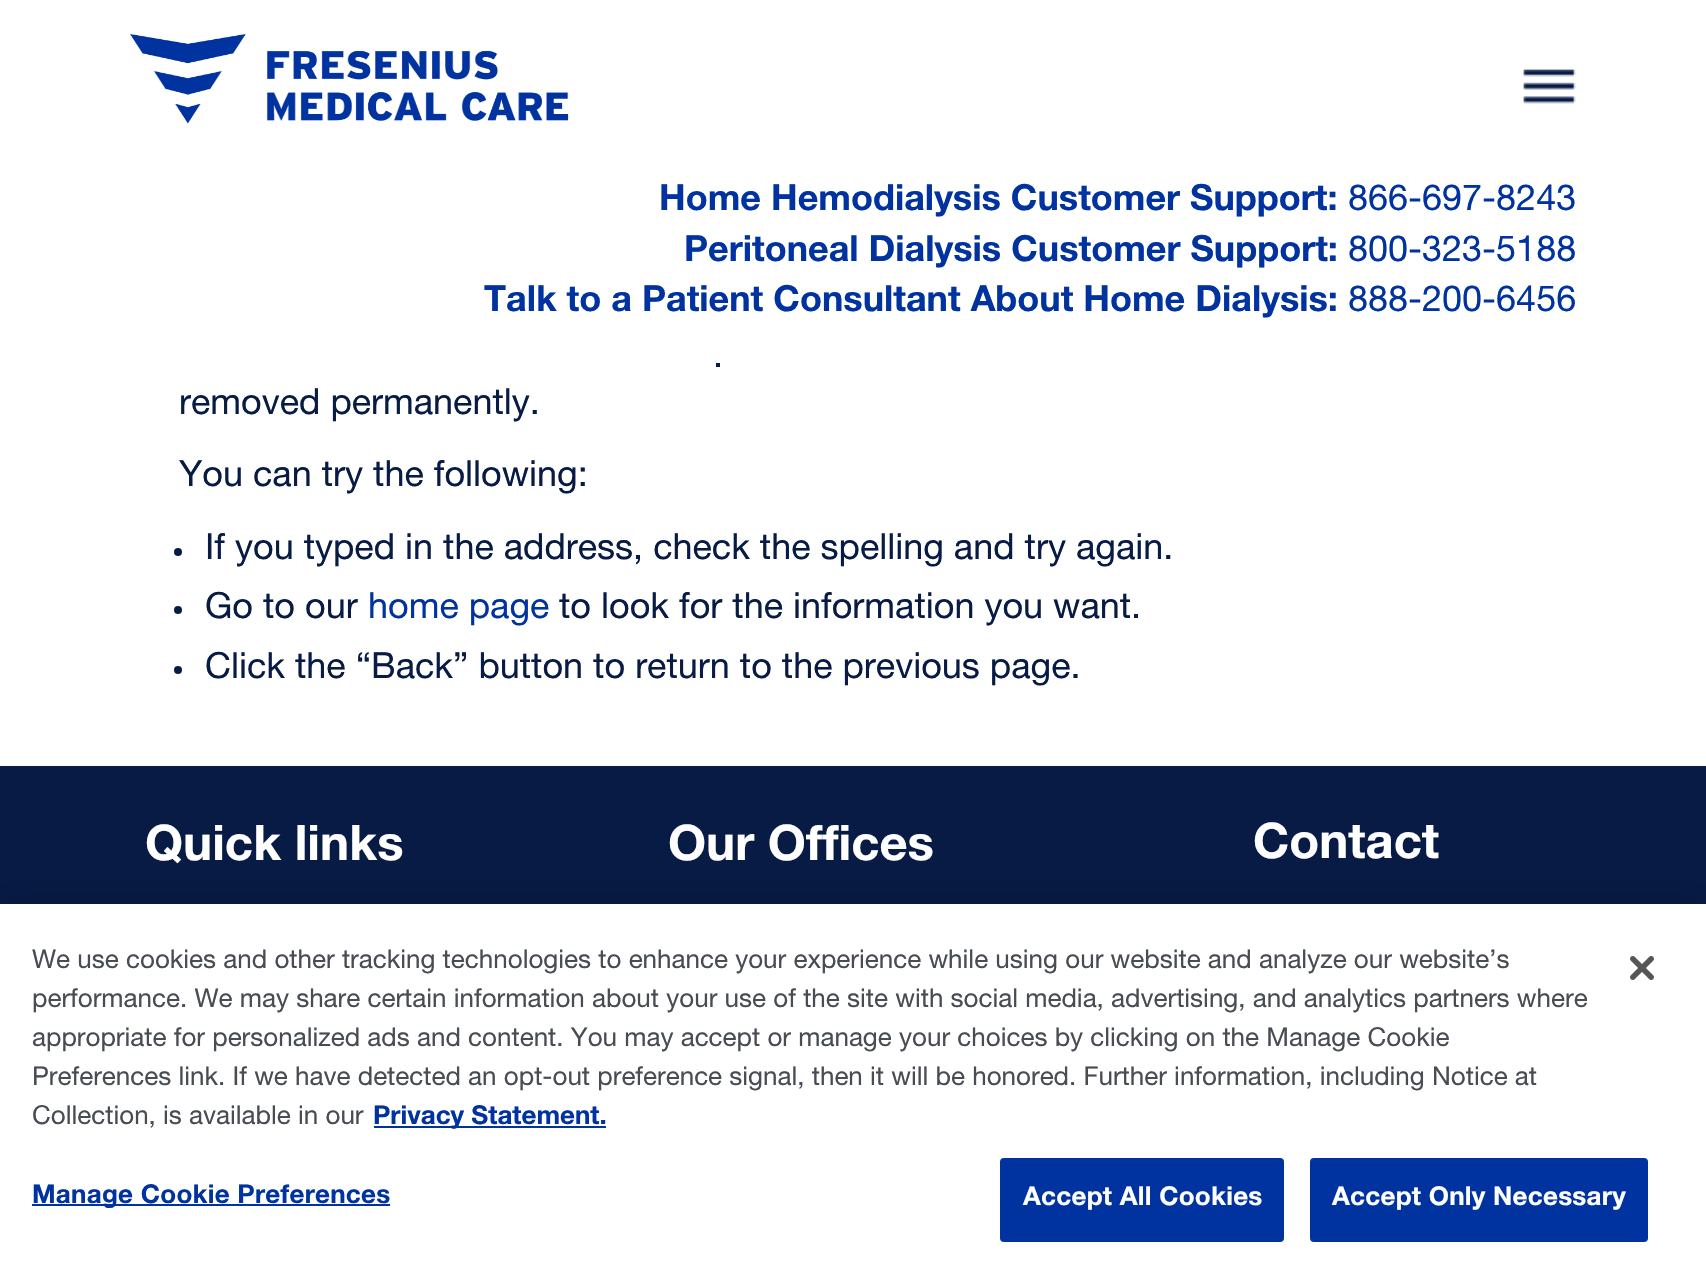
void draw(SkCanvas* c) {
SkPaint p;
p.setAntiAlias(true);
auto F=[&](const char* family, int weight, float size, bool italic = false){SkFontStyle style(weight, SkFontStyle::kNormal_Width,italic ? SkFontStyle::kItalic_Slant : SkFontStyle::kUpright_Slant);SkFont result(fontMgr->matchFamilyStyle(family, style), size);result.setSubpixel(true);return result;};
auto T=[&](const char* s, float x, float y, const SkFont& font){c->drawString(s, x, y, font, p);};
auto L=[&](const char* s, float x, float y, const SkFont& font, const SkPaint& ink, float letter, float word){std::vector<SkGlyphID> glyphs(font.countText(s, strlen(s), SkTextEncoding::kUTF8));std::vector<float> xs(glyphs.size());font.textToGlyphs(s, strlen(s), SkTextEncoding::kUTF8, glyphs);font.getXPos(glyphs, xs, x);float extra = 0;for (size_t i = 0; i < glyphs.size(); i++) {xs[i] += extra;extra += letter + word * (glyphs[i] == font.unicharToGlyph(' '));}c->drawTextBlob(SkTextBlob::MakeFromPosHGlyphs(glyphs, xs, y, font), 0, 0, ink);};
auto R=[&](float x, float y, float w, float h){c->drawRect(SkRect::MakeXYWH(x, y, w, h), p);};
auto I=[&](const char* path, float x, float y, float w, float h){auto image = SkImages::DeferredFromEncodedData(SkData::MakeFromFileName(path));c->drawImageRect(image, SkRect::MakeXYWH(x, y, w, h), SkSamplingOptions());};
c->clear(0xffffffff);
I("1.png",130,34,439,90);
I("2.png",1523,69,53,35);
auto f1 = F("Helvetica Neue",700,36);
p.setColor(0xff0033a0);
T("Home Hemodialysis Customer Support:",659,210,f1);
auto f2 = F("Helvetica Neue",400,36);
T("866-697-8243",1348,210,f2);
T("Peritoneal Dialysis Customer Support:",684,261,f1);
T("800-323-5188",1348,261,f2);
T("Talk to a Patient Consultant About Home Dialysis:",484,311,f1);
T("888-200-6456",1348,311,f2);
p.setColor(0xff071b45);
T(".",713,367,f2);
T("removed permanently.",179,414,f2);
T("You can try the following:",179,486,f2);
c->drawCircle(178,552,4,p);
T("If you typed in the address, check the spelling and try again.",205,559,f2);
c->drawCircle(178,610,4,p);
T("Go to our",205,618,f2);
p.setColor(0xff0033a0);
T("home page",368,618,f2);
p.setColor(0xff071b45);
T("to look for the information you want.",559,618,f2);
c->drawCircle(178,670,4,p);
T("Click the “Back” button to return to the previous page.",205,678,f2);
R(0,766,1706,138);
auto f3 = F("Helvetica Neue",700,49);
p.setColor(0xffffffff);
T("Quick links",145,860,f3);
T("Our Offices",668,860,f3);
T("Contact",1253,858,f3);
p.setColor(0x33000000);
p.setMaskFilter(SkMaskFilter::MakeBlur(kNormal_SkBlurStyle, 18));
c->drawRect(SkRect::MakeXYWH(0,904,1706,384),p);
p.setMaskFilter(nullptr);
p.setColor(0xffffffff);
R(0,904,1706,384);
auto f4 = F("Helvetica Neue",400,26.02);
p.setColor(0xff484c53);
T("We use cookies and other tracking technologies to enhance your experience while using our website and analyze our website’s",32,968,f4);
T("performance. We may share certain information about your use of the site with social media, advertising, and analytics partners where",32,1007,f4);
T("appropriate for personalized ads and content. You may accept or manage your choices by clicking on the Manage Cookie",32,1046,f4);
T("Preferences link. If we have detected an opt-out preference signal, then it will be honored. Further information, including Notice at",32,1085,f4);
T("Collection, is available in our",32,1124,f4);
p.setColor(0xff0033a0);
R(374,1126,232,2);
auto f5 = F("Helvetica Neue",700,26.02);
T("Privacy Statement.",373,1124,f5);
R(32,1204,358,2);
L("Manage Cookie Preferences",32,1203,f5,p,.25,0);
c->drawRoundRect(SkRect::MakeXYWH(1001,1159,282,82),3,3,p);
p.setStroke(true);
p.setStrokeWidth(2);
c->drawRoundRect(SkRect::MakeXYWH(1001,1159,282,82),3,3,p);
p.setStroke(false);
p.setColor(0xffffffff);
L("Accept All Cookies",1023,1205,f5,p,.25,0);
p.setColor(0xff0033a0);
c->drawRoundRect(SkRect::MakeXYWH(1311,1159,336,82),3,3,p);
p.setStroke(true);
c->drawRoundRect(SkRect::MakeXYWH(1311,1159,336,82),3,3,p);
p.setStroke(false);
p.setColor(0xffffffff);
L("Accept Only Necessary",1332,1205,f5,p,.25,0);
I("3.png",1630,956,24,24);
}
